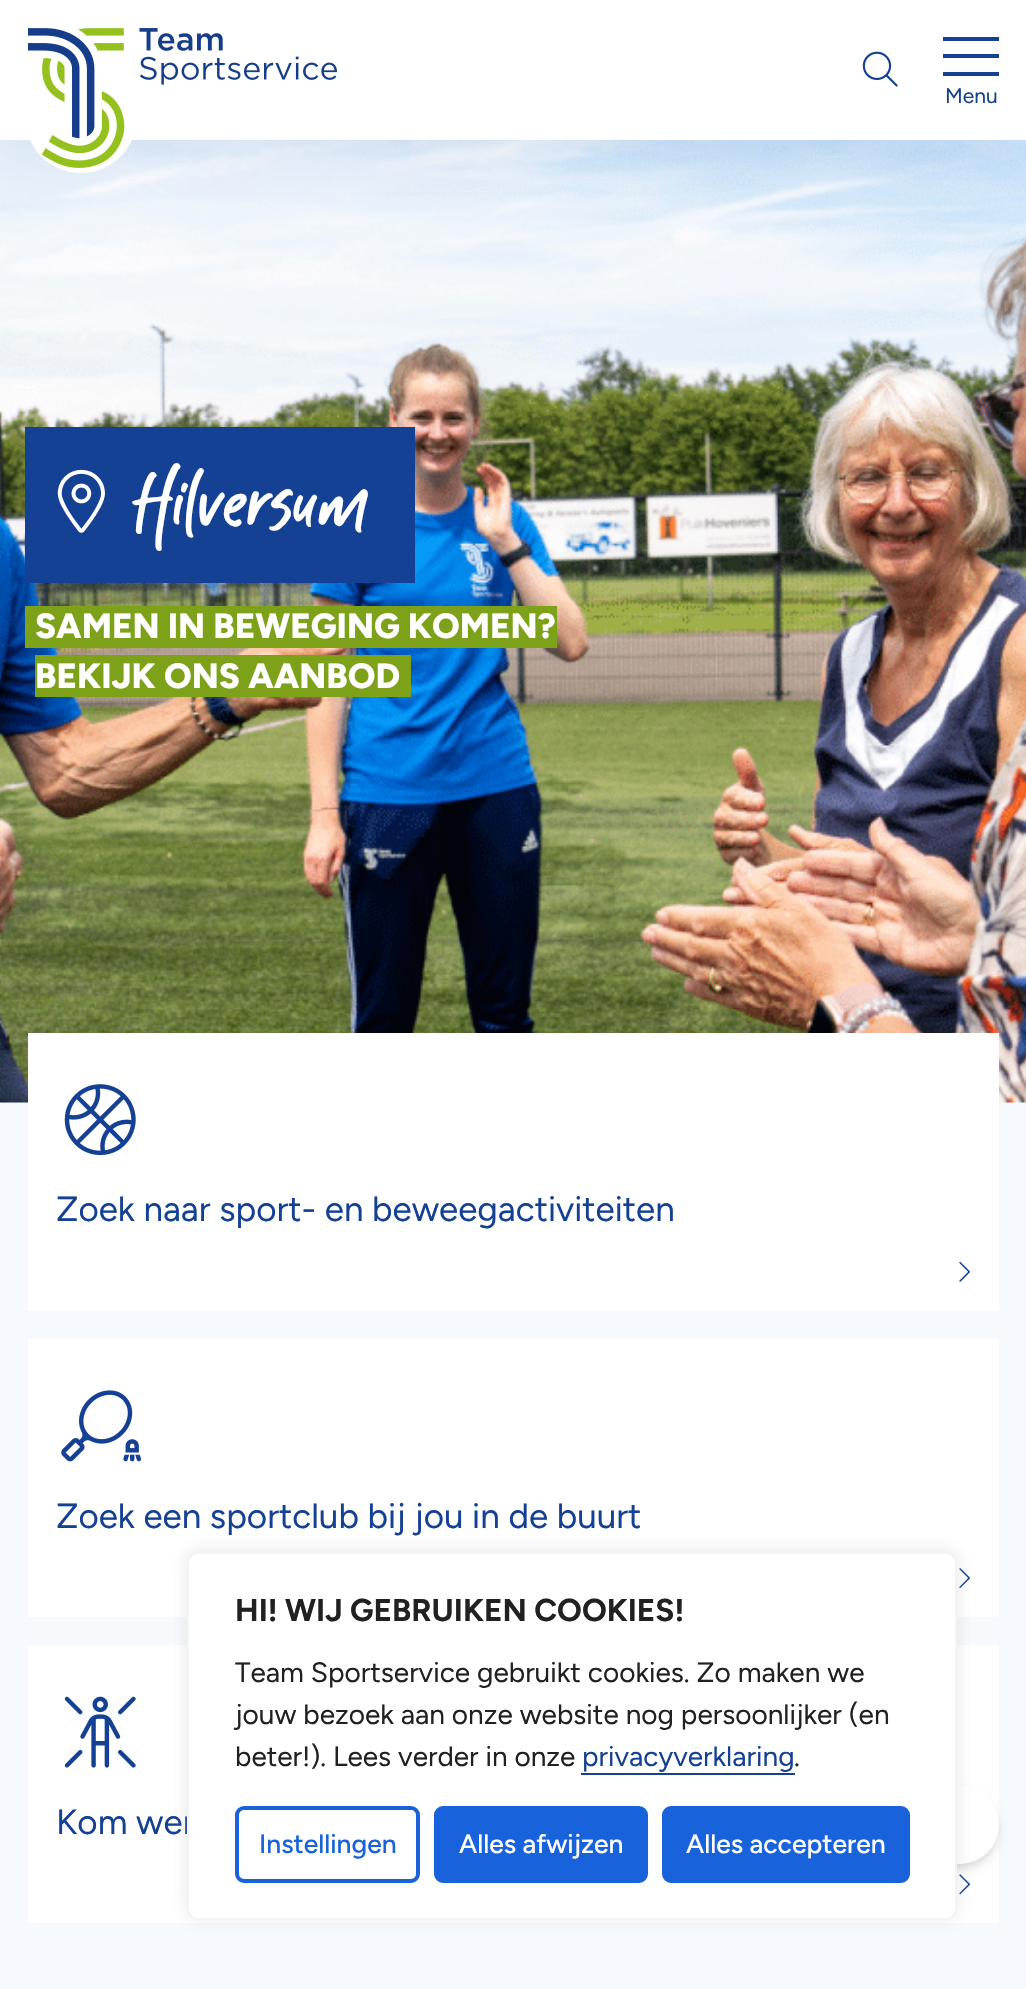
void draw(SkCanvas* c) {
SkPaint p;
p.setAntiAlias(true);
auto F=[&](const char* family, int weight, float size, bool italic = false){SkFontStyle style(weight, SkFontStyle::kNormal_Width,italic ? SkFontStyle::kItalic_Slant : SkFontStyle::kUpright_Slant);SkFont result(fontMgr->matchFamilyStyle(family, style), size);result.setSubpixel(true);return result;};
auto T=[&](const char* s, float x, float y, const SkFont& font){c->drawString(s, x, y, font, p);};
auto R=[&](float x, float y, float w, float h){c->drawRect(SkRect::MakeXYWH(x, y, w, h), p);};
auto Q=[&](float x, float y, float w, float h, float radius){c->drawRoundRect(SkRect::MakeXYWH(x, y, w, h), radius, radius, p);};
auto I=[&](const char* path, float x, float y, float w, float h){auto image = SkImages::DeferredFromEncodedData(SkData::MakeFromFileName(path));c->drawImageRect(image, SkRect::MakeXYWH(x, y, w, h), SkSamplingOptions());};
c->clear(0xfff6f9fd);
I("3.png",0,140,1026,963);
p.setColor(0x1a154194);
p.setMaskFilter(SkMaskFilter::MakeBlur(kNormal_SkBlurStyle, 26));
c->drawRect(SkRect::MakeXYWH(0,11,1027,140),p);
p.setMaskFilter(nullptr);
p.setColor(0xffffffff);
R(0,0,1026,140);
c->drawCircle(81,117,56,p);
I("1.png",28,28,309,140);
I("2.png",862,51,36,36);
p.setColor(0xff154194);
R(943,37,56,4);
R(943,54,56,4);
R(943,72,56,4);
auto f1 = F("Figtree",400,21);
T("Menu",945,103,f1);
R(25,427,390,156);
I("4.png",57,469,48,64);
auto f2 = F("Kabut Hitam",400,112);
p.setColor(0xffffffff);
T("Hilversum",133,529,f2);
p.setColor(0xff7da119);
R(25,606,532,42);
auto f3 = F("Figtree",800,35);
p.setColor(0xffffffff);
T("SAMEN IN BEWEGING KOMEN?",35,638,f3);
p.setColor(0xff7da119);
R(35,655,376,42);
p.setColor(0xffffffff);
T("BEKIJK ONS AANBOD",35,688,f3);
R(28,1033,971,278);
I("5.png",64,1084,72,72);
auto f4 = F("Figtree",400,35);
p.setColor(0xff154194);
T("Zoek naar sport- en beweegactiviteiten",56,1221,f4);
I("6.png",959,1261,11,21);
p.setColor(0xffffffff);
R(28,1339,971,278);
I("7.png",61,1390,80,72);
p.setColor(0xff154194);
T("Zoek een sportclub bij jou in de buurt",56,1528,f4);
I("8.png",959,1568,11,20);
p.setColor(0xffffffff);
R(28,1645,971,278);
I("9.png",64,1696,72,72);
p.setColor(0xff154194);
T("Kom wer",56,1834,f4);
I("10.png",959,1874,11,21);
p.setColor(0x0f000000);
p.setMaskFilter(SkMaskFilter::MakeBlur(kNormal_SkBlurStyle, 3.5));
c->drawRoundRect(SkRect::MakeXYWH(922,1790,76,76),38,38,p);
p.setMaskFilter(nullptr);
p.setColor(0x1a000000);
p.setMaskFilter(SkMaskFilter::MakeBlur(kNormal_SkBlurStyle, 5));
c->drawRoundRect(SkRect::MakeXYWH(922,1794,76,75),37.5,37.5,p);
p.setMaskFilter(nullptr);
p.setColor(0xffffffff);
Q(921,1785,78,79,39);
p.setColor(0x4dacabab);
p.setMaskFilter(SkMaskFilter::MakeBlur(kNormal_SkBlurStyle, 9));
c->drawRoundRect(SkRect::MakeXYWH(187,1551,770,367),11,11,p);
p.setMaskFilter(nullptr);
p.setColor(0xffffffff);
c->drawRoundRect(SkRect::MakeXYWH(188,1553,768,366),10,10,p);
p.setStroke(true);
p.setStrokeWidth(2);
p.setColor(0xfff4f4f4);
c->drawRoundRect(SkRect::MakeXYWH(188,1553,768,366),10,10,p);
auto f5 = F("Figtree",700,31.5);
p.setStroke(false);
p.setColor(0xff212121);
T("HI! WIJ GEBRUIKEN COOKIES!",235,1621,f5);
auto f6 = F("Figtree",400,28);
T("Team Sportservice gebruikt cookies. Zo maken we",235,1682,f6);
T("jouw bezoek aan onze website nog persoonlijker (en",235,1724,f6);
T("beter!). Lees verder in onze",235,1766,f6);
p.setColor(0xff154194);
T("privacyverklaring",582,1766,f6);
R(581,1773,214,2);
p.setColor(0xff212121);
T(".",794,1766,f6);
p.setStroke(true);
p.setStrokeWidth(4);
p.setColor(0xff1863dc);
c->drawRoundRect(SkRect::MakeXYWH(237,1808,181,73),7,7,p);
auto f7 = F("Figtree",500,26.5);
p.setStroke(false);
T("Instellingen",259,1853,f7);
c->drawRoundRect(SkRect::MakeXYWH(436,1808,210,73),7,7,p);
p.setStroke(true);
c->drawRoundRect(SkRect::MakeXYWH(436,1808,210,73),7,7,p);
p.setStroke(false);
p.setColor(0xffffffff);
T("Alles afwijzen",459,1853,f7);
p.setColor(0xff1863dc);
c->drawRoundRect(SkRect::MakeXYWH(664,1808,244,73),7,7,p);
p.setStroke(true);
c->drawRoundRect(SkRect::MakeXYWH(664,1808,244,73),7,7,p);
p.setStroke(false);
p.setColor(0xffffffff);
T("Alles accepteren",686,1853,f7);
}
